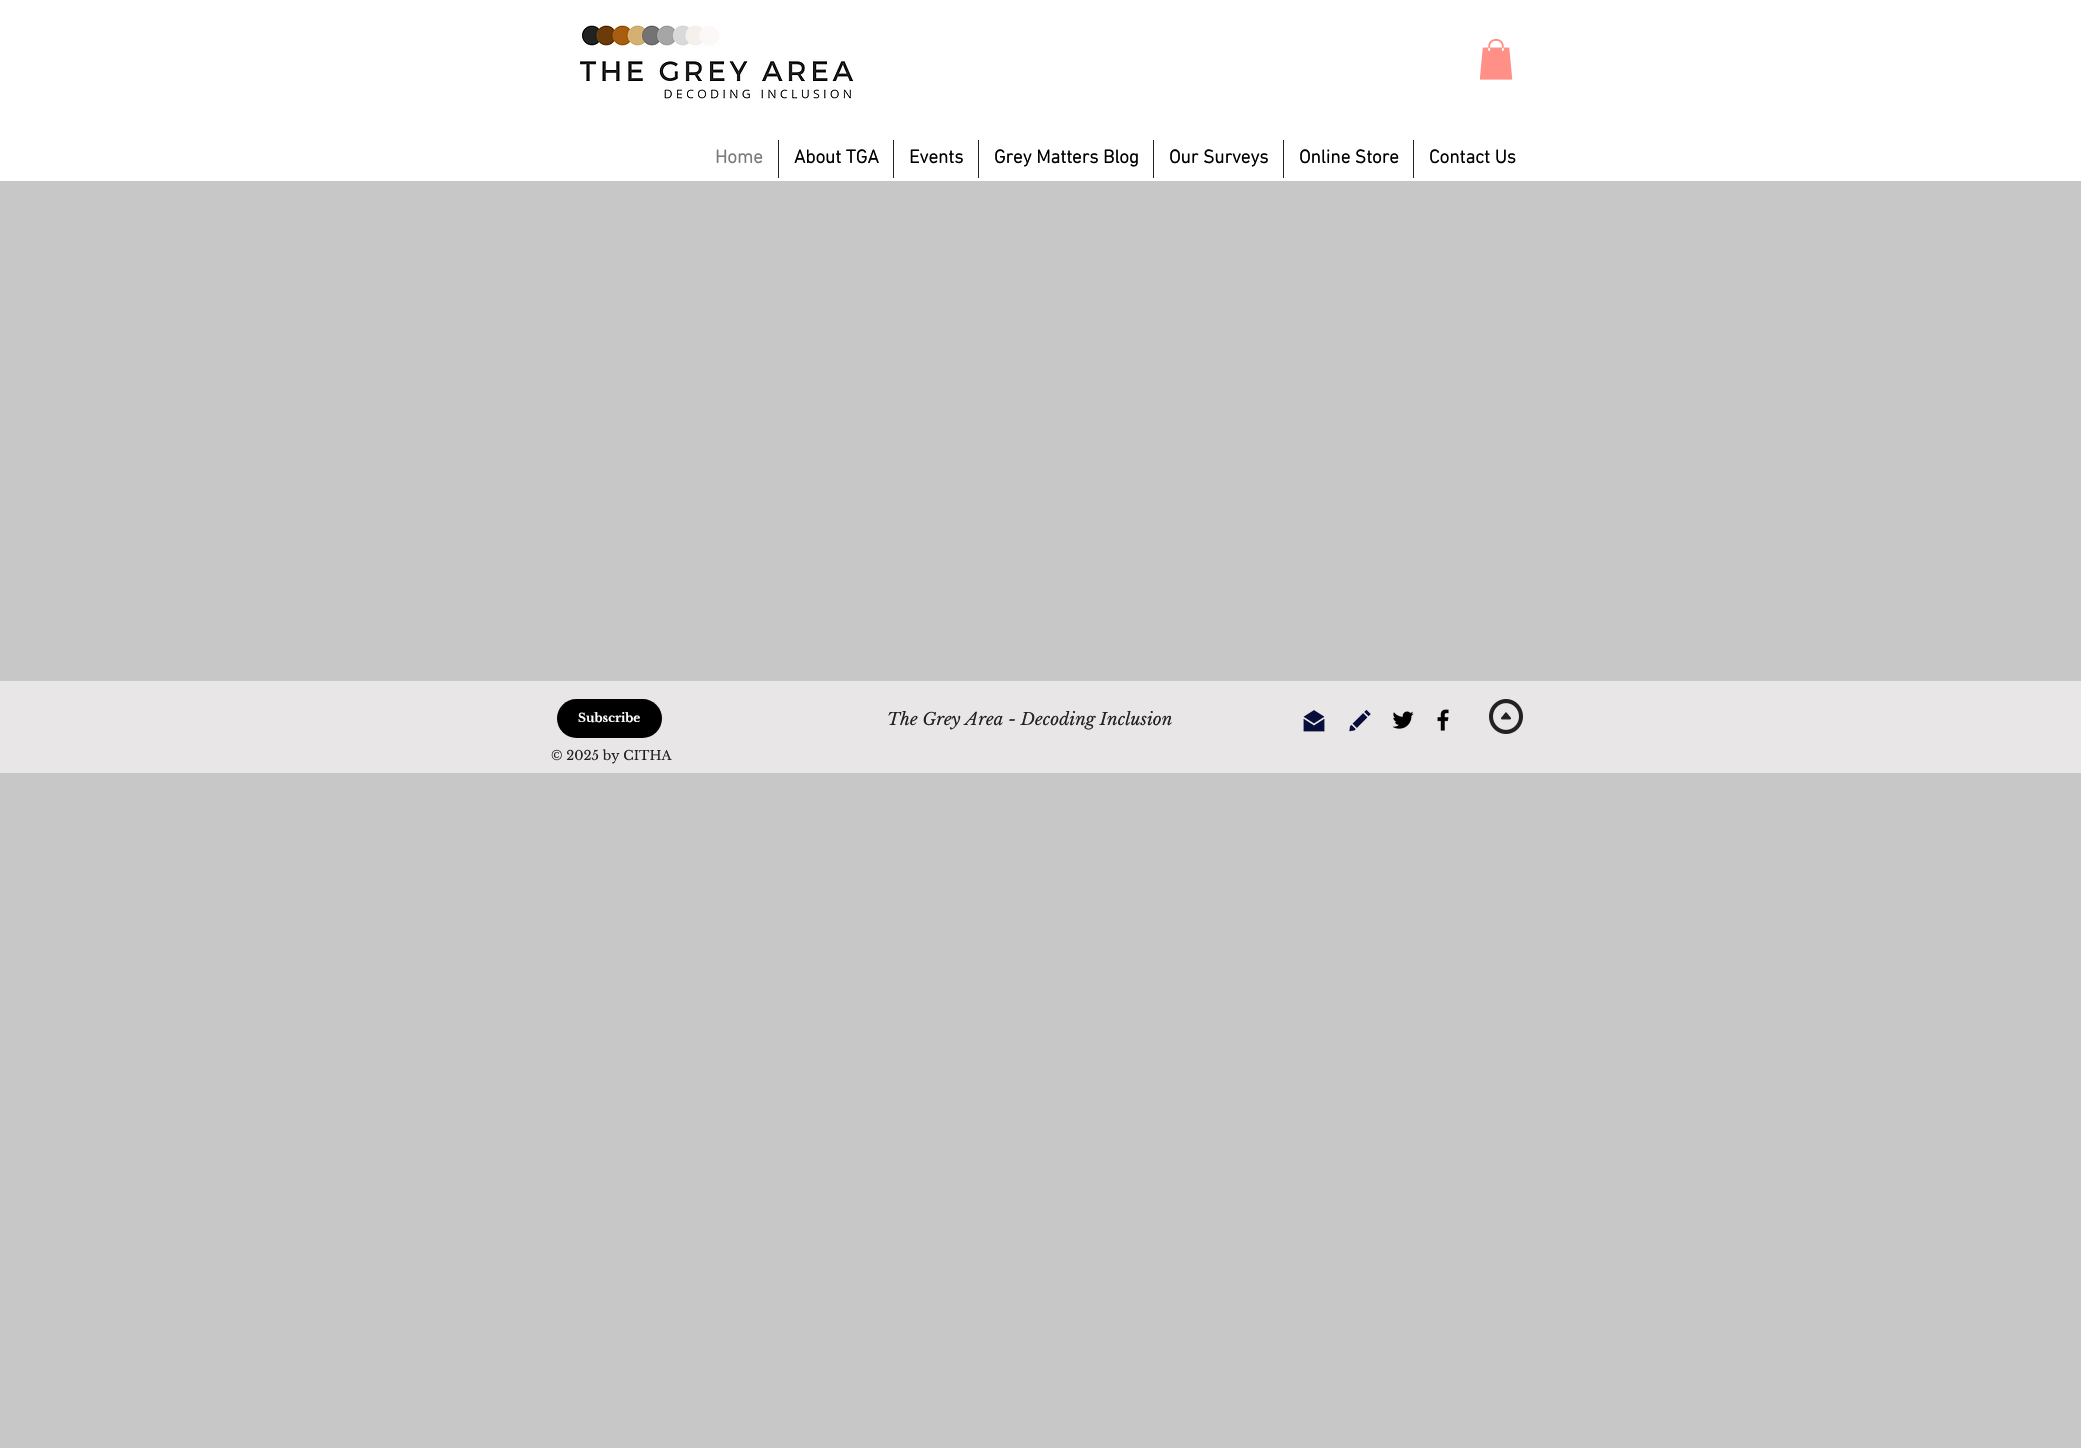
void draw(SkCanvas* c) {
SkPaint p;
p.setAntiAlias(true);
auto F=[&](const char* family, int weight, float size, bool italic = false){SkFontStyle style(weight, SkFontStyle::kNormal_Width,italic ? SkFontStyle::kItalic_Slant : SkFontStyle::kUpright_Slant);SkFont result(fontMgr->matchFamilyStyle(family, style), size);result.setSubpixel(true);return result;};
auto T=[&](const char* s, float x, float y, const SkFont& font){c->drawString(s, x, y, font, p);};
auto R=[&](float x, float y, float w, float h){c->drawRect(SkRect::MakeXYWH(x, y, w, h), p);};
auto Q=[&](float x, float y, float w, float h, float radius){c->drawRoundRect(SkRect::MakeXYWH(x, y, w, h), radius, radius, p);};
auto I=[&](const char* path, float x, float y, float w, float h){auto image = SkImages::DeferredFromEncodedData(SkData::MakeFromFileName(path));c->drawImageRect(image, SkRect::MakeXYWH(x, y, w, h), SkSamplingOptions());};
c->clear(0xffc7c7c7);
p.setColor(0xffffffff);
R(0,0,2081,181);
I("1.png",580,25,274,74);
I("2.png",1479,39,34,41);
auto f1 = F("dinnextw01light",700,19);
p.setColor(0xff7a7a7a);
T("Home",715,163,f1);
p.setColor(0xff222222);
R(778,140,1,38);
p.setColor(0xff000000);
T("About TGA",794,163,f1);
p.setColor(0xff222222);
R(893,140,1,38);
p.setColor(0xff000000);
T("Events",909,163,f1);
p.setColor(0xff222222);
R(978,140,1,38);
p.setColor(0xff000000);
T("Grey Matters Blog",994,163,f1);
p.setColor(0xff222222);
R(1153,140,1,38);
p.setColor(0xff000000);
T("Our Surveys",1169,163,f1);
p.setColor(0xff222222);
R(1283,140,1,38);
p.setColor(0xff000000);
T("Online Store",1299,163,f1);
p.setColor(0xff222222);
R(1413,140,1,38);
p.setColor(0xff000000);
T("Contact Us",1429,163,f1);
p.setColor(0xffe8e6e6);
R(0,681,2081,92);
p.setColor(0xff000000);
Q(557,699,105,39,19.5);
auto f2 = F("Libre Baskerville",700,12);
p.setColor(0xffffffff);
T("Subscribe",578,722,f2);
auto f3 = F("Libre Baskerville",400,17,true);
p.setColor(0xff222222);
T("The Grey Area - Decoding Inclusion",887,725,f3);
I("3.png",1303,710,22,22);
I("4.png",1349,709,22,23);
I("5.png",1392,711,22,18);
I("6.png",1437,709,12,22);
I("7.png",1489,699,34,35);
auto f4 = F("Libre Baskerville",400,13);
T("© 2025 by CITHA",551,760,f4);
}
